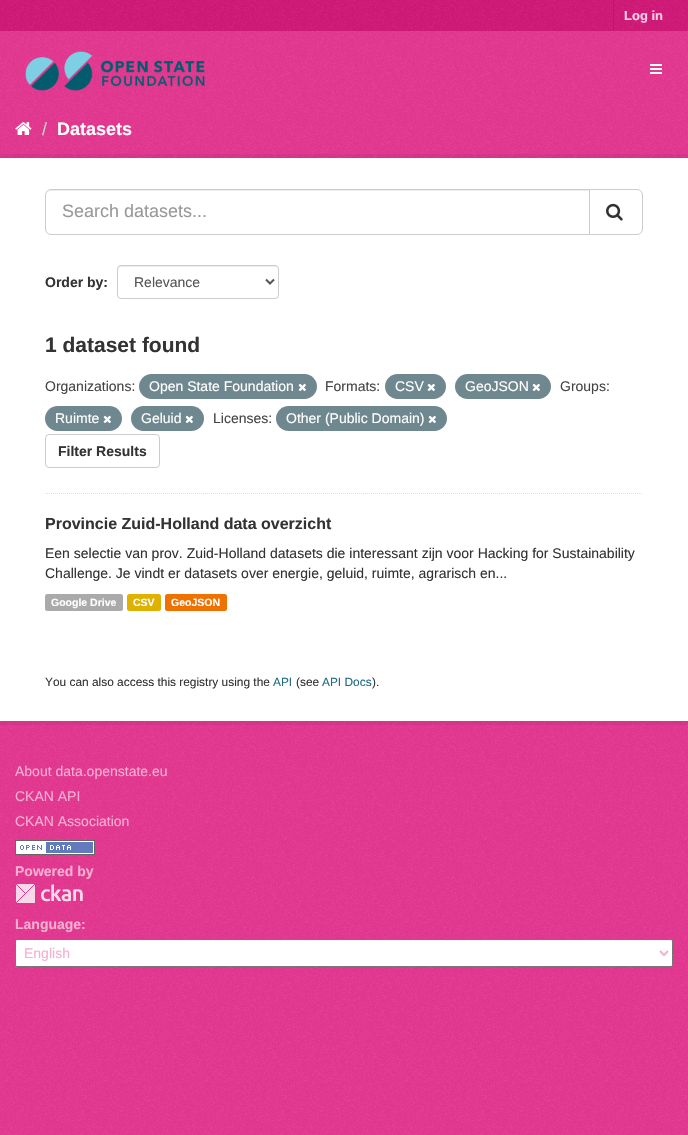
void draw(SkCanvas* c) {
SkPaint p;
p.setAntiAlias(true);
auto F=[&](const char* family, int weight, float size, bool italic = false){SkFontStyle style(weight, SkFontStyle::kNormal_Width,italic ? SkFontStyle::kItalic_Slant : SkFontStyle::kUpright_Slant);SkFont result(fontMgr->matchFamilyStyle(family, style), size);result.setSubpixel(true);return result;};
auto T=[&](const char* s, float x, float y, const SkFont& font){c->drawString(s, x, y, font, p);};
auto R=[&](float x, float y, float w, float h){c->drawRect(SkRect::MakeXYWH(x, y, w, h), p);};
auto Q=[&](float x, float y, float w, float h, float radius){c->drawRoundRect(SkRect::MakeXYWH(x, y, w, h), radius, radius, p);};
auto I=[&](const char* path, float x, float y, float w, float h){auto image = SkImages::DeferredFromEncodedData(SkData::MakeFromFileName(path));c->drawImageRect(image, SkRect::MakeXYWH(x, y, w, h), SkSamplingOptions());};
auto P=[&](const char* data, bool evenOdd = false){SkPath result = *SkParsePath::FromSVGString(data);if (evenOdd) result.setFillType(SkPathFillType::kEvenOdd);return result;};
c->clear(0xffe73892);
I("1.png",0,112,688,1023);
p.setColor(0xffd31979);
R(0,0,688,31);
I("2.png",0,0,688,31);
p.setColor(0xffbc176c);
R(613,0,1,31);
auto f1 = F("Liberation Sans",700,13);
p.setColor(0xfff9cde4);
T("Log in",624,20,f1);
I("3.png",0,31,688,81);
I("4.png",25,51,180,40);
I("5.png",650,64,12,10);
I("6.png",15,122,17,13);
auto f2 = F("Liberation Sans",400,18);
p.setColor(0xffcccccc);
T("/",42,135,f2);
auto f3 = F("Liberation Sans",700,18);
p.setColor(0xffffffff);
T("Datasets",57,135,f3);
p.setStroke(true);
p.setStrokeWidth(4);
p.setColor(0x0d000000);
c->drawRect(SkRect::MakeXYWH(-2,156,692,567),p);
p.setStroke(false);
p.setColor(0xffffffff);
R(0,158,688,563);
p.setStroke(true);
p.setStrokeWidth(1);
p.setColor(0xffdddddd);
p.setPathEffect(SkDashPathEffect::Make({{1,1}}, 0));
c->drawPath(P("M45 493.5h598"),p);
p.setPathEffect(nullptr);
p.setStroke(false);
p.setColor(0xffececec);
c->drawPath(P("M51 191h538v-1h-538c-3 0-5 3-5 6c0-3 2-5 5-5z"),p);
p.setStroke(true);
p.setColor(0xffcccccc);
c->drawPath(P("M51 189.5h538.5v45h-538.5c-3 0-5.5-2.5-5.5-5.5v-34c0-3 2.5-5.5 5.5-5.5z"),p);
p.setStroke(false);
p.setColor(0xff999999);
T("Search datasets...",62,217,f2);
p.setColor(0xffffffff);
c->drawPath(P("M589.5 189.5h47.5c3 0 5.5 2.5 5.5 5.5v34c0 3-2.5 5.5-5.5 5.5h-47.5z"),p);
p.setStroke(true);
p.setColor(0xffcccccc);
c->drawPath(P("M589.5 189.5h47.5c3 0 5.5 2.5 5.5 5.5v34c0 3-2.5 5.5-5.5 5.5h-47.5z"),p);
I("7.png",606,203,17,18);
auto f4 = F("Liberation Sans",700,14);
p.setStroke(false);
p.setColor(0xff333333);
T("Order by:",45,287,f4);
p.setColor(0xffececec);
c->drawPath(P("M121 267h154c2 0 3 1 3 3c0-2-1-4-3-4h-155c-2 0-2 2-2 4c0-2 1-3 3-3z"),p);
p.setStroke(true);
p.setColor(0xffcccccc);
c->drawRoundRect(SkRect::MakeXYWH(117.5,265.5,161,33),3.5,3.5,p);
p.setStrokeWidth(2);
p.setColor(0xff555555);
c->drawPath(P("M266 279.5l4 4l4-4"),p);
auto f5 = F("Liberation Sans",400,14);
p.setStroke(false);
T("Relevance",134,287,f5);
auto f6 = F("Liberation Sans",700,21);
p.setColor(0xff333333);
T("1 dataset found",45,352,f6);
p.setColor(0xff444444);
T("Organizations:",45,391,f5);
p.setColor(0xff6f8890);
Q(139,374,178,25,12.5);
p.setColor(0xffffffff);
T("Open State Foundation",149,391,f5);
I("8.png",298,383,8,8);
p.setColor(0xff444444);
T("Formats:",325,391,f5);
p.setColor(0xff6f8890);
Q(385,374,61,25,12.5);
p.setColor(0xffffffff);
T("CSV",395,391,f5);
I("8.png",427,383,8,8);
p.setColor(0xff6f8890);
Q(455,374,96,25,12.5);
p.setColor(0xffffffff);
T("GeoJSON",465,391,f5);
I("8.png",532,383,8,8);
p.setColor(0xff444444);
T("Groups:",560,391,f5);
p.setColor(0xff6f8890);
Q(45,406,77,25,12.5);
p.setColor(0xffffffff);
T("Ruimte",55,423,f5);
I("8.png",103,415,8,8);
p.setColor(0xff6f8890);
Q(131,406,73,25,12.5);
p.setColor(0xffffffff);
T("Geluid",141,423,f5);
I("8.png",185,415,8,8);
p.setColor(0xff444444);
T("Licenses:",213,423,f5);
p.setColor(0xff6f8890);
Q(276,406,171,25,12.5);
p.setColor(0xffffffff);
T("Other (Public Domain)",286,423,f5);
I("8.png",428,415,8,8);
p.setStroke(true);
p.setStrokeWidth(1);
p.setColor(0xffcccccc);
c->drawRoundRect(SkRect::MakeXYWH(45.5,434.5,114,33),3.5,3.5,p);
p.setStroke(false);
p.setColor(0xff333333);
T("Filter Results",58,456,f4);
auto f7 = F("Liberation Sans",700,16);
T("Provincie Zuid-Holland data overzicht",45,529,f7);
T("Een selectie van prov. Zuid-Holland datasets die interessant zijn voor Hacking for Sustainability",45,558,f5);
T("Challenge. Je vindt er datasets over energie, geluid, ruimte, agrarisch en...",45,578,f5);
p.setColor(0xffaaaaaa);
Q(45,594,78,17,2.5);
auto f8 = F("Liberation Sans",700,10.5);
p.setColor(0xffffffff);
T("Google Drive",51,606,f8);
p.setColor(0xffdfb100);
Q(127,594,34,17,2.5);
p.setColor(0xffffffff);
T("CSV",133,606,f8);
p.setColor(0xffef7100);
Q(165,594,62,17,2.5);
p.setColor(0xffffffff);
T("GeoJSON",171,606,f8);
auto f9 = F("Liberation Sans",400,11.9);
p.setColor(0xff333333);
T("You can also access this registry using the",45,686,f9);
p.setColor(0xff206b82);
T("API",273,686,f9);
p.setColor(0xff333333);
T("(see",296,686,f9);
p.setColor(0xff206b82);
T("API Docs",322,686,f9);
p.setColor(0xff333333);
T(").",372,686,f9);
p.setColor(0xffe73892);
R(0,741,688,246);
I("9.png",0,741,688,246);
p.setColor(0xfff5afd3);
T("About data.openstate.eu",15,776,f5);
T("CKAN API",15,801,f5);
T("CKAN Association",15,826,f5);
I("10.png",15,840,80,15);
T("Powered by",15,876,f4);
I("11.png",16,884,67,19);
T("Language:",15,929,f4);
p.setColor(0xffffffff);
c->drawRoundRect(SkRect::MakeXYWH(15.5,939.5,657,27),1.5,1.5,p);
p.setStroke(true);
p.setColor(0xff767676);
c->drawRoundRect(SkRect::MakeXYWH(15.5,939.5,657,27),1.5,1.5,p);
p.setStrokeWidth(2);
p.setColor(0xfff5afd3);
c->drawPath(P("M660 951l4 4l4-4"),p);
p.setStroke(false);
T("English",24,958,f5);
}
